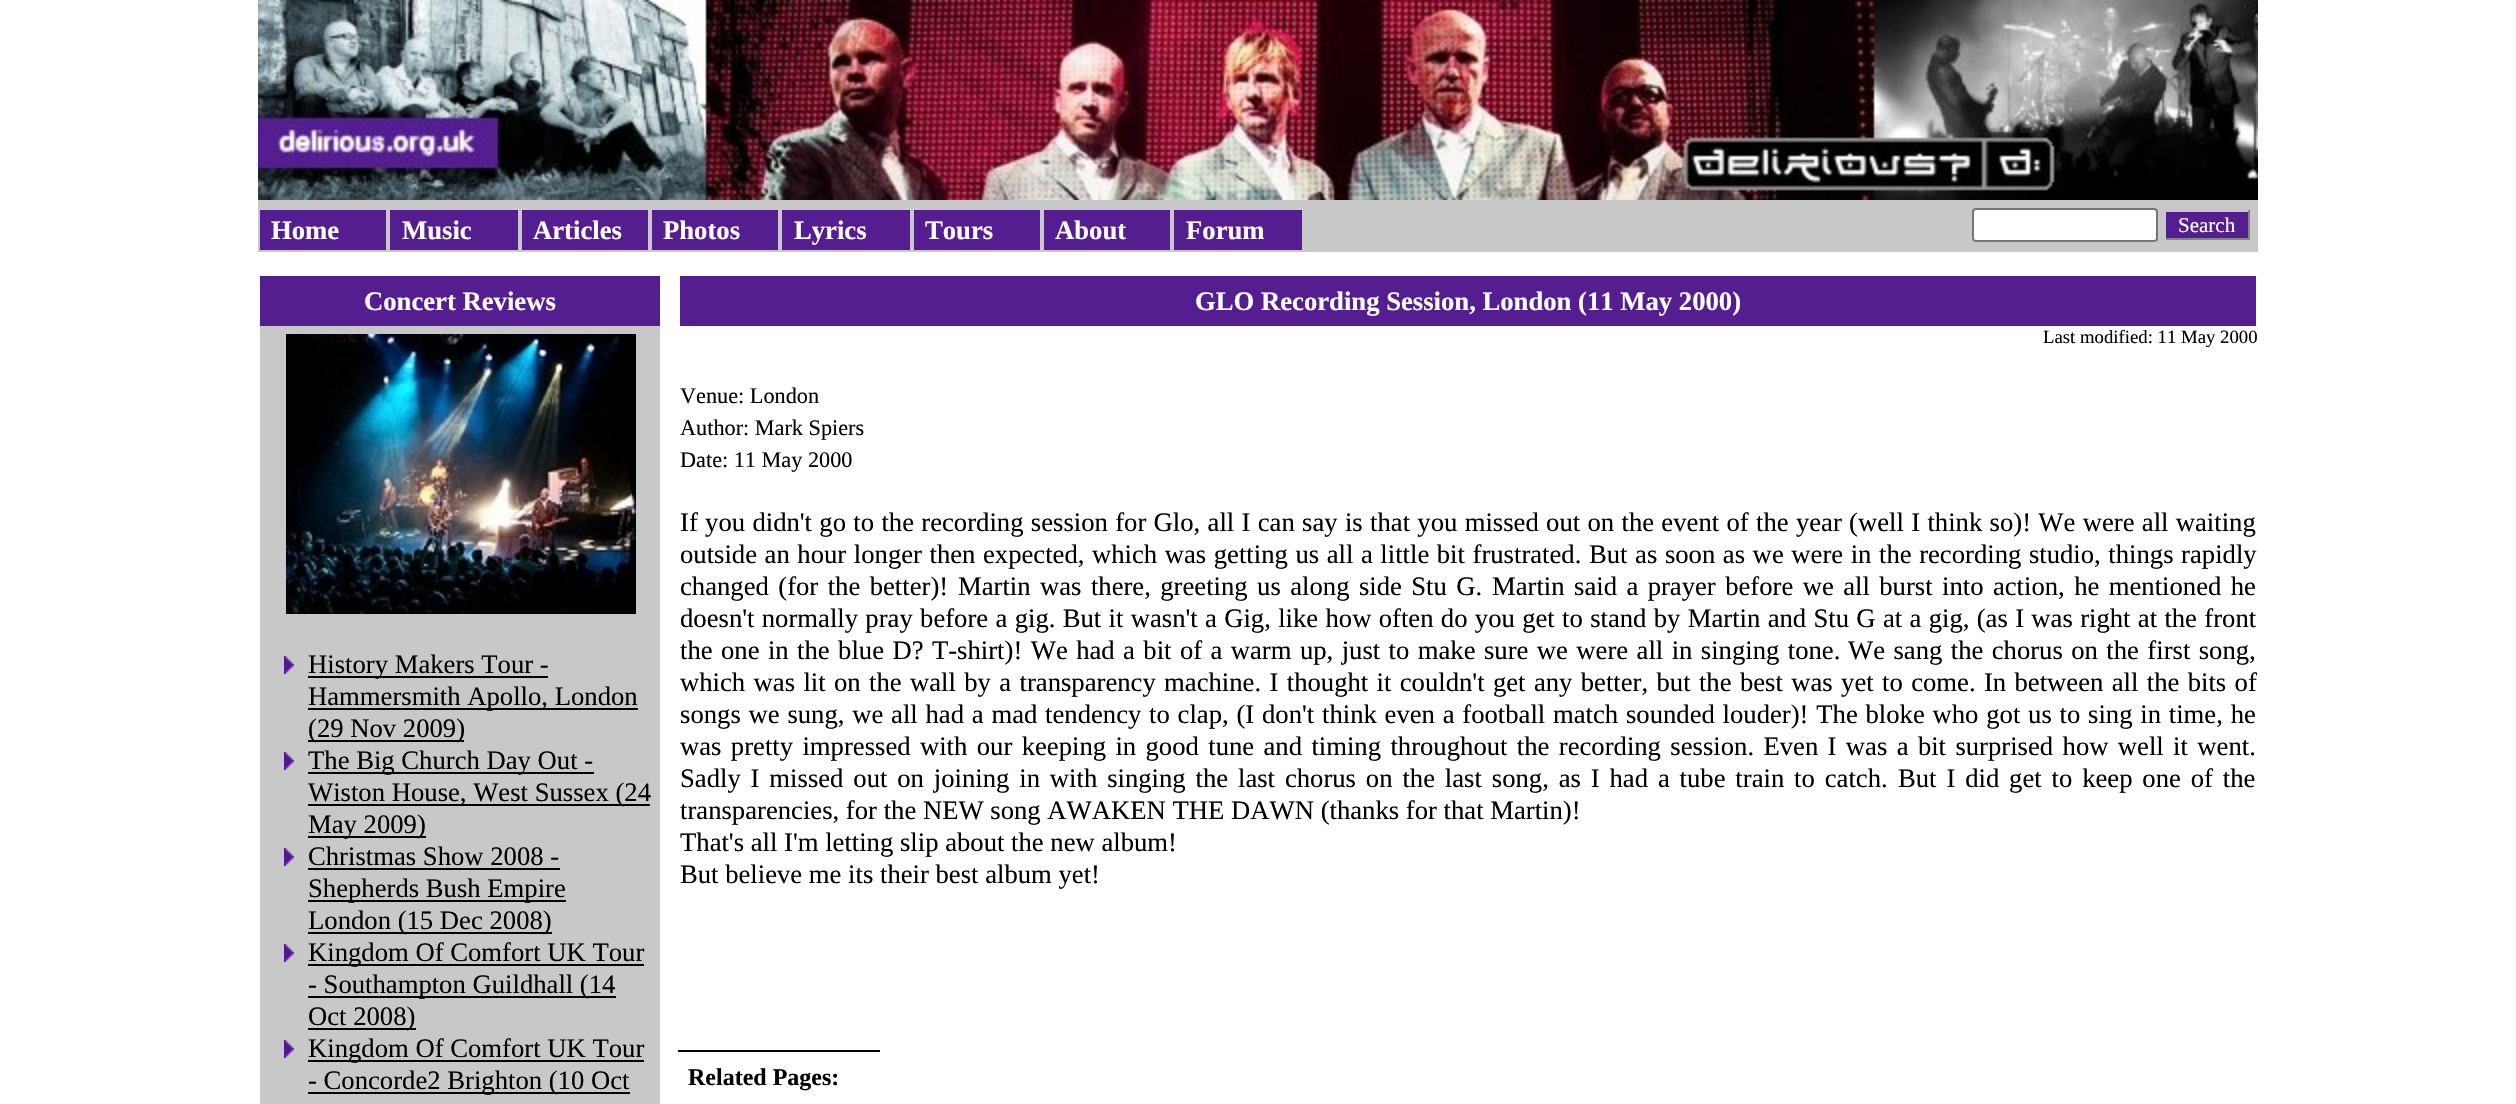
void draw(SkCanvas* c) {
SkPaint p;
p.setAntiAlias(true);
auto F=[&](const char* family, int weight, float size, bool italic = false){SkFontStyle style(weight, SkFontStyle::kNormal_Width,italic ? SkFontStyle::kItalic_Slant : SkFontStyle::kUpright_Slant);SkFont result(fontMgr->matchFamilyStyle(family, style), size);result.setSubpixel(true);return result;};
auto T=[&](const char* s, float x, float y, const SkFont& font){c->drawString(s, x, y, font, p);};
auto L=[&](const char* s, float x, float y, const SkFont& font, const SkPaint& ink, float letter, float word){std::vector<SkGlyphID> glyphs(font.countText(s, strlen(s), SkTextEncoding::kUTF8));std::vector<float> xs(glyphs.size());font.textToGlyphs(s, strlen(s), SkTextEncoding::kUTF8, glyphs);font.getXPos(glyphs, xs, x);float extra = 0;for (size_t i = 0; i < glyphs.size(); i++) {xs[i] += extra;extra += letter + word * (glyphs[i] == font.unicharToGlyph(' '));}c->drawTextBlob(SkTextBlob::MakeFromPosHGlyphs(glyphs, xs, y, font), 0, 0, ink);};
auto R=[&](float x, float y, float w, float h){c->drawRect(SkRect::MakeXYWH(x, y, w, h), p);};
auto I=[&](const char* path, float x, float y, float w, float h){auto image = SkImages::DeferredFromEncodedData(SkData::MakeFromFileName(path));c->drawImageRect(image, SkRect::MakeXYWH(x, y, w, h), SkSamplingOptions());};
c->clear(0xffffffff);
I("1.png",258,0,2000,200);
p.setColor(0xffc8c8c8);
R(258,200,2000,52);
p.setColor(0xff541e90);
R(260,210,126,40);
auto f1 = F("Liberation Serif",700,26.67);
p.setColor(0xffffffff);
T("Home",271,239,f1);
p.setColor(0xff541e90);
R(390,210,128,40);
p.setColor(0xffffffff);
T("Music",402,239,f1);
p.setColor(0xff541e90);
R(522,210,126,40);
p.setColor(0xffffffff);
T("Articles",533,239,f1);
p.setColor(0xff541e90);
R(652,210,126,40);
p.setColor(0xffffffff);
T("Photos",663,239,f1);
p.setColor(0xff541e90);
R(782,210,128,40);
p.setColor(0xffffffff);
T("Lyrics",794,239,f1);
p.setColor(0xff541e90);
R(914,210,126,40);
p.setColor(0xffffffff);
T("Tours",925,239,f1);
p.setColor(0xff541e90);
R(1044,210,126,40);
p.setColor(0xffffffff);
T("About",1055,239,f1);
p.setColor(0xff541e90);
R(1174,210,128,40);
p.setColor(0xffffffff);
T("Forum",1186,239,f1);
c->drawRoundRect(SkRect::MakeXYWH(1973,209,184,32),3,3,p);
p.setStroke(true);
p.setStrokeWidth(2);
p.setColor(0xff767676);
c->drawRoundRect(SkRect::MakeXYWH(1973,209,184,32),3,3,p);
p.setStroke(false);
p.setColor(0xff541e90);
R(2166,212,82,26);
p.setColor(0xff858585);
R(2248,210,2,30);
R(2164,238,86,2);
p.setColor(0xffc8c8c8);
R(2164,238,2,2);
auto f2 = F("Liberation Serif",400,21);
p.setColor(0xffffffff);
T("Search",2178,232,f2);
p.setColor(0xff541e90);
R(260,276,400,50);
p.setColor(0xffffffff);
T("Concert Reviews",364,310,f1);
p.setColor(0xffc8c8c8);
R(260,326,400,778);
I("2.png",286,334,350,280);
I("3.png",284,656,10,18);
p.setColor(0xff000000);
R(308,676,240,2);
auto f3 = F("Liberation Serif",400,26.67);
T("History Makers Tour -",308,673,f3);
R(308,708,330,2);
T("Hammersmith Apollo, London",308,705,f3);
R(308,740,156,2);
T("(29 Nov 2009)",308,737,f3);
I("3.png",284,752,10,18);
R(308,772,286,2);
T("The Big Church Day Out -",308,769,f3);
R(308,804,342,2);
T("Wiston House, West Sussex (24",308,801,f3);
R(308,836,118,2);
T("May 2009)",308,833,f3);
I("3.png",284,848,10,18);
T("Christmas Show 2008 -",308,865,f3);
R(308,868,252,2);
R(308,900,258,2);
T("Shepherds Bush Empire",308,897,f3);
R(308,932,244,2);
T("London (15 Dec 2008)",308,929,f3);
I("3.png",284,944,10,18);
R(308,964,336,2);
T("Kingdom Of Comfort UK Tour",308,961,f3);
R(308,996,308,2);
T("- Southampton Guildhall (14",308,993,f3);
R(308,1028,108,2);
T("Oct 2008)",308,1025,f3);
I("3.png",284,1040,10,18);
R(308,1060,336,2);
T("Kingdom Of Comfort UK Tour",308,1057,f3);
R(308,1092,322,2);
T("- Concorde2 Brighton (10 Oct",308,1089,f3);
p.setColor(0xff541e90);
R(680,276,1576,50);
p.setColor(0xffffffff);
T("GLO Recording Session, London (11 May 2000)",1195,310,f1);
auto f4 = F("Liberation Serif",400,18.75);
p.setColor(0xff000000);
T("Last modified: 11 May 2000",2043,343,f4);
auto f5 = F("Liberation Serif",400,22.25);
T("Venue: London",680,403,f5);
T("Author: Mark Spiers",680,435,f5);
T("Date: 11 May 2000",680,467,f5);
L("If you didn't go to the recording session for Glo, all I can say is that you missed out on the event of the year (well I think so)! We were all waiting",680,531,f3,p,0,.65);
L("outside an hour longer then expected, which was getting us all a little bit frustrated.",680,563,f3,p,0,.9);
L("But as soon as we were in the recording studio, things rapidly",1589,563,f3,p,0,.9);
L("changed (for the better)!",680,595,f3,p,0,2.75);
L("Martin was there, greeting us along side Stu G.",958,595,f3,p,0,2.75);
L("Martin said a prayer before we all burst into action, he mentioned he",1492,595,f3,p,0,2.75);
L("doesn't normally pray before a gig. But it wasn't a Gig, like how often do you get to stand by Martin and Stu G at a gig, (as I was right at the front",680,627,f3,p,0,.65);
L("the one in the blue D? T-shirt)! We had a bit of a warm up, just to make sure we were all in singing tone.",680,659,f3,p,0,1.75);
L("We sang the chorus on the first song,",1848,659,f3,p,0,1.75);
L("which was lit on the wall by a transparency machine. I thought it couldn't get any better, but the best was yet to come. In between all the bits of",680,691,f3,p,0,1.7);
L("songs we sung, we all had a mad tendency to clap, (I don't think even a football match sounded louder)! The bloke who got us to sing in time, he",680,723,f3,p,0,1.1);
L("was pretty impressed with our keeping in good tune and timing throughout the recording session. Even I was a bit surprised how well it went.",680,755,f3,p,0,2.7);
L("Sadly I missed out on joining in with singing the last chorus on the last song, as I had a tube train to catch.",680,787,f3,p,0,3.2);
L("But I did get to keep one of the",1898,787,f3,p,0,3.2);
T("transparencies, for the NEW song AWAKEN THE DAWN (thanks for that Martin)!",680,819,f3);
T("That's all I'm letting slip about the new album!",680,851,f3);
T("But believe me its their best album yet!",680,883,f3);
R(678,1050,202,2);
auto f6 = F("Liberation Serif",700,24);
T("Related Pages:",688,1085,f6);
}
